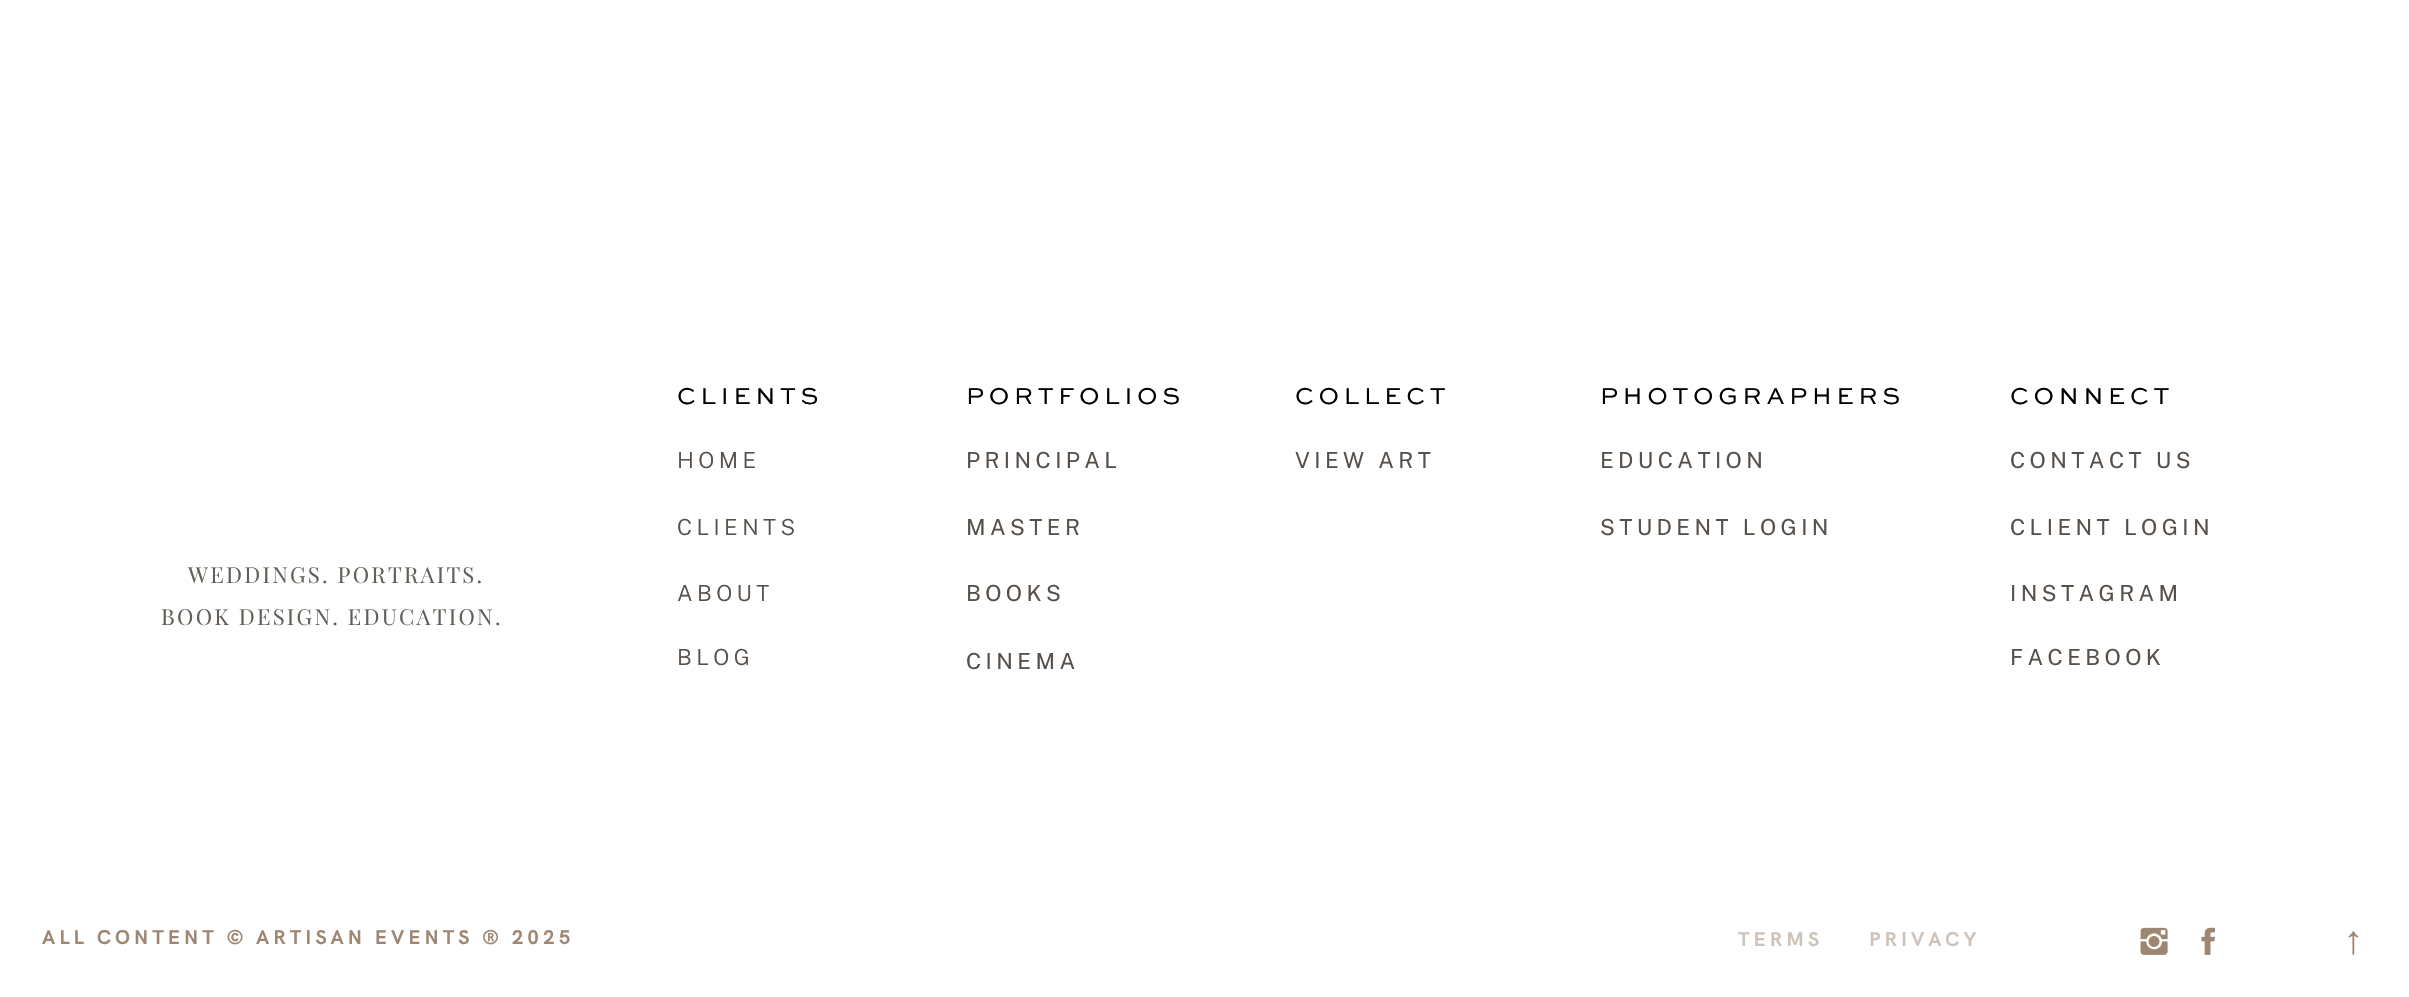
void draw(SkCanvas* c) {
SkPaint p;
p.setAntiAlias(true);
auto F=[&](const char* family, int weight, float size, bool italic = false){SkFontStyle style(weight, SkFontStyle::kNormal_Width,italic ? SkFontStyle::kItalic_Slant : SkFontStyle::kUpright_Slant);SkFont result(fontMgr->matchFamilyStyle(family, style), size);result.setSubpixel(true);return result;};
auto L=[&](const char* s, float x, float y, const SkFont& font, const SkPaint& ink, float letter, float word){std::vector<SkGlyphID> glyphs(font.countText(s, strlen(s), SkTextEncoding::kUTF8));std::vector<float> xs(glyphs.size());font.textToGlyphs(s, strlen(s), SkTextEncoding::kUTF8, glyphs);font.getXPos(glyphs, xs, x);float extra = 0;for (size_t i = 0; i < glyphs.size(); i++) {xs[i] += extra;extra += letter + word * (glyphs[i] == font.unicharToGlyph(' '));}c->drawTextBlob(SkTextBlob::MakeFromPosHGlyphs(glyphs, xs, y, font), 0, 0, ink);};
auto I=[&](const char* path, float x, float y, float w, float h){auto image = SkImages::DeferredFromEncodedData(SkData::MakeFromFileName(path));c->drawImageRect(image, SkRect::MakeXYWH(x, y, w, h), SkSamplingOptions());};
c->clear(0xffffffff);
auto f1 = F("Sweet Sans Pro",400,24.1);
p.setColor(0xff000000);
L("CLIENTS",677,404,f1,p,4.75,0);
L("PORTFOLIOS",966,404,f1,p,4.75,0);
L("COLLECT",1295,404,f1,p,4.75,0);
L("PHOTOGRAPHERS",1600,404,f1,p,4.75,0);
L("CONNECT",2010,404,f1,p,4.75,0);
auto f2 = F("Public Sans",300,22.1);
p.setColor(0xff57504a);
L("HOME",677,468,f2,p,4.4,0);
auto f3 = F("Public Sans",400,22.1);
L("PRINCIPAL",966,468,f3,p,4.4,0);
L("VIEW ART",1295,468,f3,p,4.4,0);
L("EDUCATION",1600,468,f3,p,4.4,0);
L("CONTACT US",2010,468,f3,p,4.4,0);
L("CLIENTS",677,535,f2,p,4.4,0);
L("MASTER",966,535,f3,p,4.4,0);
L("STUDENT LOGIN",1600,535,f3,p,4.4,0);
L("CLIENT LOGIN",2010,535,f3,p,4.4,0);
auto f4 = F("Playfair Display",400,22.1);
p.setColor(0xff645e58);
L("WEDDINGS. PORTRAITS.",188,583,f4,p,2.25,0);
L("BOOK DESIGN. EDUCATION.",161,625,f4,p,2.25,0);
p.setColor(0xff57504a);
L("ABOUT",677,601,f2,p,4.4,0);
L("BOOKS",966,601,f3,p,4.4,0);
L("INSTAGRAM",2010,601,f3,p,4.4,0);
L("BLOG",677,665,f2,p,4.4,0);
L("CINEMA",966,669,f3,p,4.4,0);
L("FACEBOOK",2010,665,f3,p,4.4,0);
auto f5 = F("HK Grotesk",700,20.1);
p.setColor(0xff9e8772);
L("ALL CONTENT © ARTISAN EVENTS ® 2025",42,944,f5,p,4,0);
p.setColor(0xffcfc3b9);
L("TERMS",1738,946,f5,p,4,0);
L("PRIVACY",1869,946,f5,p,4,0);
I("1.png",2140,927,28,28);
I("2.png",2201,927,14,28);
auto f6 = F("Liberation Serif",700,40);
p.setColor(0xff9e8772);
c->save();
c->rotate(-90,2360,963);
L("→",2360,963,f6,p,8,0);
c->restore();
}
